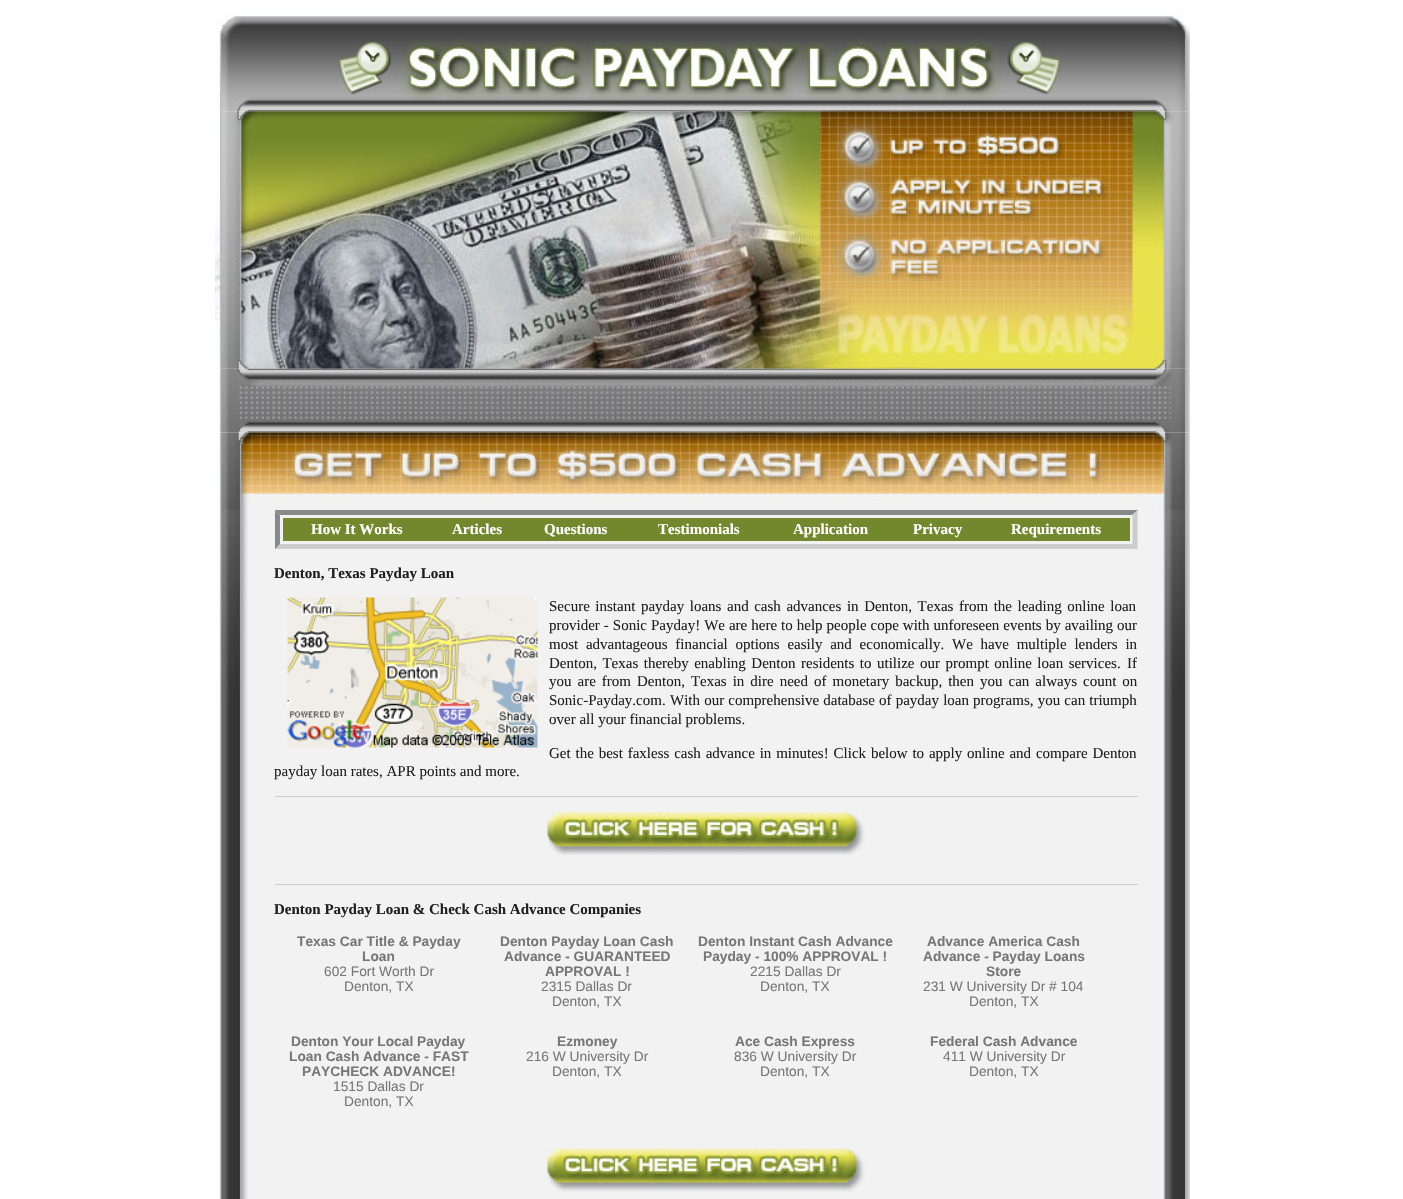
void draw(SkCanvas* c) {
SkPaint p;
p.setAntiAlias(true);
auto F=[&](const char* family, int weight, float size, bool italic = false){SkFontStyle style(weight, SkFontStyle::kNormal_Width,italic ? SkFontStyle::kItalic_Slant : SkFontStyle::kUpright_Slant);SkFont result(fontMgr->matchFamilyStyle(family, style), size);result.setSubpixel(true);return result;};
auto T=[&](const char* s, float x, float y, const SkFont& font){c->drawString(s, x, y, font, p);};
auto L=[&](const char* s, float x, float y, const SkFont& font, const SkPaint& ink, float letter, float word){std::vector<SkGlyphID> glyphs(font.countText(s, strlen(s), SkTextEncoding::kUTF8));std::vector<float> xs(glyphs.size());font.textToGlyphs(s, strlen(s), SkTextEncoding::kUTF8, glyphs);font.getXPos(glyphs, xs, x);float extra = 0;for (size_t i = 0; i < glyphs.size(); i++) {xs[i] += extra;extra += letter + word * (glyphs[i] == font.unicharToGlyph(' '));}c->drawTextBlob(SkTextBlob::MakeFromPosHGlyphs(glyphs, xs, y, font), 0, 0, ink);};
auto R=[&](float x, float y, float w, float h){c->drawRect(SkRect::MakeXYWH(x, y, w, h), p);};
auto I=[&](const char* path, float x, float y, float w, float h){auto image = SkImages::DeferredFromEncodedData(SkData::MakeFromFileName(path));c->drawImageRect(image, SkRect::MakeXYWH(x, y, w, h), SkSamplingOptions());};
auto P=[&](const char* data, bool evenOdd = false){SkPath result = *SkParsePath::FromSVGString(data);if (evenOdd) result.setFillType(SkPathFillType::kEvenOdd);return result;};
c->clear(0xffffffff);
p.setColor(0xfff2f2f2);
R(215,111,975,1088);
I("1.png",215,10,975,102);
I("2.png",215,111,975,258);
I("3.png",215,368,975,65);
I("4.png",215,432,975,78);
I("5.png",215,510,33,689);
p.setColor(0xff888888);
c->drawPath(P("M275 510h863l-6 5h-852z"),p);
p.setColor(0xffcccccc);
c->drawPath(P("M1137.5 510v39l-5-5v-29z"),p);
c->drawPath(P("M1138 549h-863l5-5h852z"),p);
p.setColor(0xff888888);
c->drawPath(P("M275 549v-39l5 5v29z"),p);
p.setColor(0xff73882c);
R(283,518,847,23);
auto f1 = F("Liberation Serif",700,15);
p.setColor(0xffffffff);
T("How It Works",311,534,f1);
T("Articles",452,534,f1);
T("Questions",544,534,f1);
T("Testimonials",658,534,f1);
T("Application",793,534,f1);
T("Privacy",913,534,f1);
T("Requirements",1011,534,f1);
p.setColor(0xff202020);
T("Denton, Texas Payday Loan",274,578,f1);
I("6.png",287,597,251,151);
auto f2 = F("Liberation Serif",400,15);
L("Secure instant payday loans and cash advances in Denton, Texas from the leading online loan",549,611,f2,p,0,1.8);
L("provider - Sonic Payday! We are here to help people cope with unforeseen events by availing our",549,630,f2,p,0,.25);
L("most advantageous financial options easily and economically.",549,649,f2,p,0,4);
L("We have multiple lenders in",952,649,f2,p,0,4);
L("Denton, Texas thereby enabling Denton residents to utilize our prompt online loan services.",549,668,f2,p,0,1.75);
T("If",1127,668,f2);
L("you are from Denton, Texas in dire need of monetary backup, then you can always count on",549,686,f2,p,0,2.25);
T("Sonic-Payday.com.",549,705,f2);
L("With our comprehensive database of payday loan programs, you can triumph",670,705,f2,p,0,.4);
T("over all your financial problems.",549,724,f2);
L("Get the best faxless cash advance in minutes! Click below to apply online and compare Denton",549,758,f2,p,0,1.1);
T("payday loan rates, APR points and more.",274,776,f2);
p.setColor(0xffcccccc);
R(275,796,863,1);
I("7.png",547,812,318,43);
R(275,884,863,1);
p.setColor(0xff202020);
T("Denton Payday Loan & Check Cash Advance Companies",274,914,f1);
auto f3 = F("Liberation Sans",700,13.75);
p.setColor(0xff777777);
T("Texas Car Title & Payday",297,946,f3);
T("Loan",362,961,f3);
auto f4 = F("Liberation Sans",400,13.75);
T("602 Fort Worth Dr",324,976,f4);
T("Denton, TX",344,991,f4);
T("Denton Payday Loan Cash",500,946,f3);
T("Advance - GUARANTEED",504,961,f3);
T("APPROVAL !",545,976,f3);
T("2315 Dallas Dr",541,991,f4);
T("Denton, TX",552,1006,f4);
T("Denton Instant Cash Advance",698,946,f3);
T("Payday - 100% APPROVAL !",703,961,f3);
T("2215 Dallas Dr",750,976,f4);
T("Denton, TX",760,991,f4);
T("Advance America Cash",927,946,f3);
T("Advance - Payday Loans",923,961,f3);
T("Store",986,976,f3);
T("231 W University Dr # 104",923,991,f4);
T("Denton, TX",969,1006,f4);
T("Denton Your Local Payday",291,1046,f3);
T("Loan Cash Advance - FAST",289,1061,f3);
T("PAYCHECK ADVANCE!",302,1076,f3);
T("1515 Dallas Dr",333,1091,f4);
T("Denton, TX",344,1106,f4);
T("Ezmoney",557,1046,f3);
T("216 W University Dr",526,1061,f4);
T("Denton, TX",552,1076,f4);
T("Ace Cash Express",735,1046,f3);
T("836 W University Dr",734,1061,f4);
T("Denton, TX",760,1076,f4);
T("Federal Cash Advance",930,1046,f3);
T("411 W University Dr",943,1061,f4);
T("Denton, TX",969,1076,f4);
I("8.png",547,1148,318,44);
I("9.png",1163,510,27,689);
}
